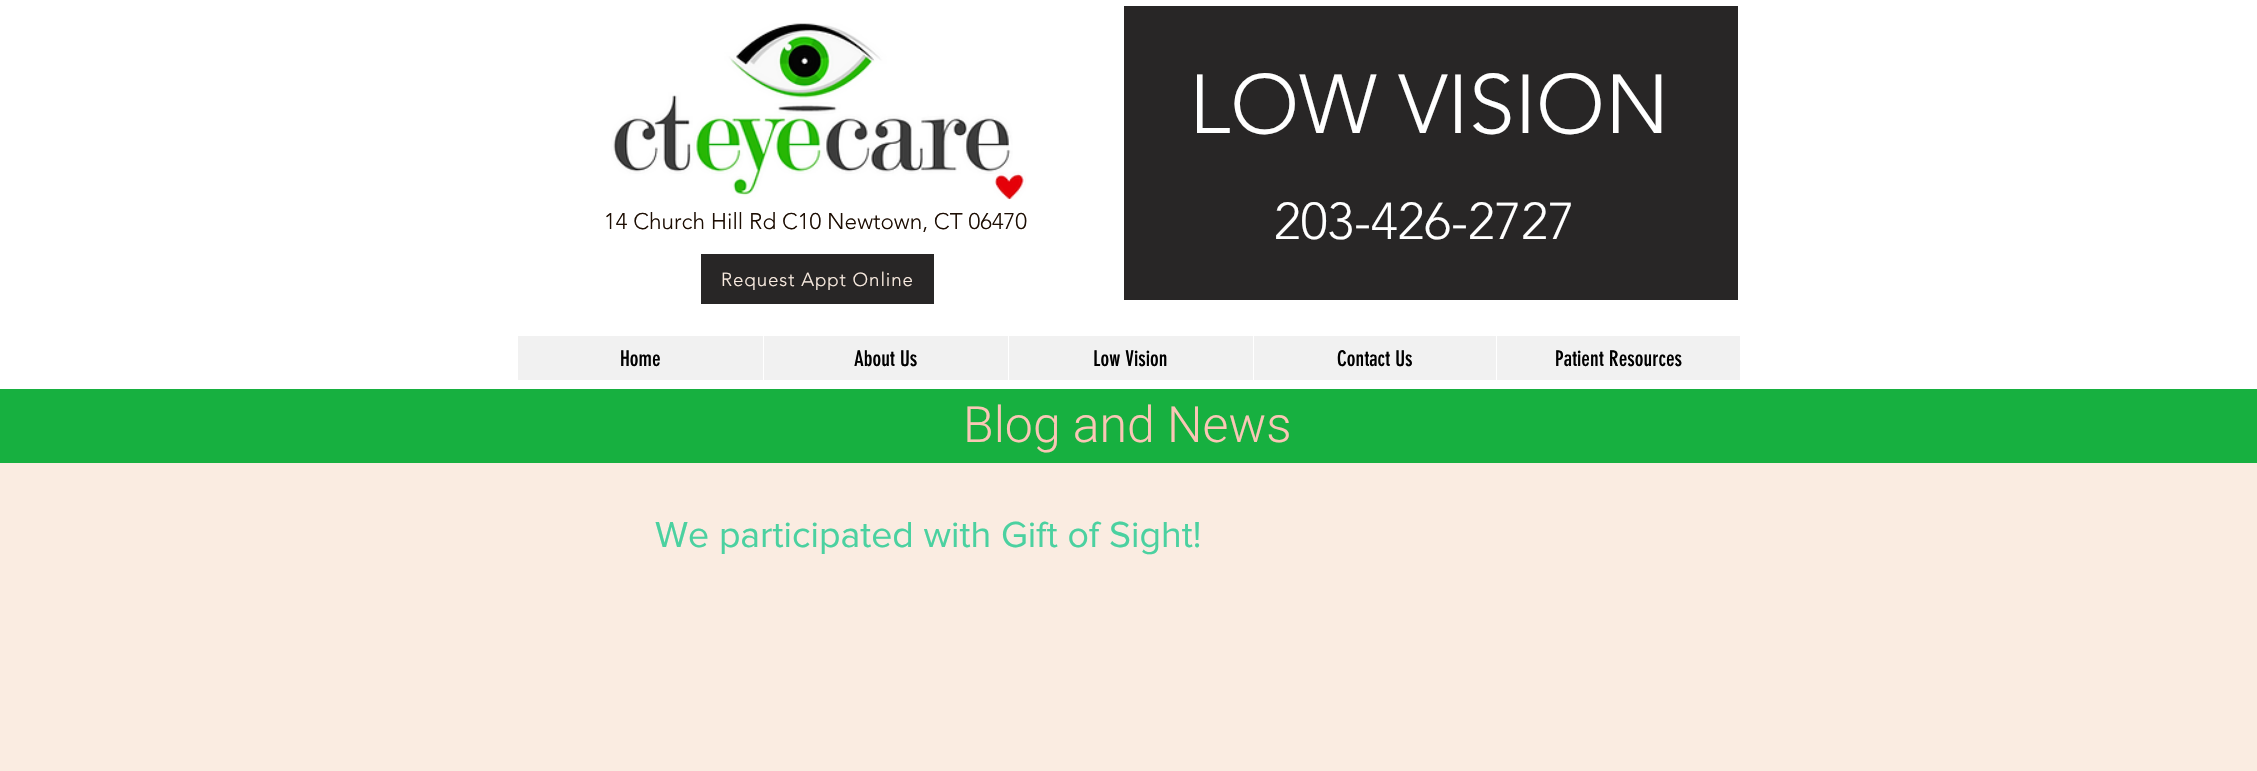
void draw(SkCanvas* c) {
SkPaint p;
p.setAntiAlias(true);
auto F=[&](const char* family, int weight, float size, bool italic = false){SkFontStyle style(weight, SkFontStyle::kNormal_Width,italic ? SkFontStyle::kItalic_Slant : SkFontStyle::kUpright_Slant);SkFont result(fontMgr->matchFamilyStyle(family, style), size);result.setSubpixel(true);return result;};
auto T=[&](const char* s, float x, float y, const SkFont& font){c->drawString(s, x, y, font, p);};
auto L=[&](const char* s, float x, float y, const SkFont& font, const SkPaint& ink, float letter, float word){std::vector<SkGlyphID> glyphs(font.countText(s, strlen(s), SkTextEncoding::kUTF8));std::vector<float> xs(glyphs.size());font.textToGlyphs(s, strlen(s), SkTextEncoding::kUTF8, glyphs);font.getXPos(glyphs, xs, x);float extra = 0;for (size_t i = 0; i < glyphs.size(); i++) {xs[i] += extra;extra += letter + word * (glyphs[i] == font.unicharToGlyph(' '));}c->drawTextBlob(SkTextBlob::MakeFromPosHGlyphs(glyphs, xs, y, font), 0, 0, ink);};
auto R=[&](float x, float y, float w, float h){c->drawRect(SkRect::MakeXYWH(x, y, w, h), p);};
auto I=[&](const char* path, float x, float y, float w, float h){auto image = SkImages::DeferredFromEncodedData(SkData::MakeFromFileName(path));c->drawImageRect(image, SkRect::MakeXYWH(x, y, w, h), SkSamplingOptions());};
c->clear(0xfffaece1);
p.setColor(0xffffffff);
R(0,0,2257,389);
I("1.png",611,23,415,177);
p.setColor(0xff282626);
R(1124,6,614,294);
auto f1 = F("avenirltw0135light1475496",300,82.5);
p.setColor(0xffffffff);
T("LOW VISION",1189,133,f1);
auto f2 = F("avenirltw0135light1475496",300,51.25);
T("203-426-2727",1274,239,f2);
auto f3 = F("avenirltw0135light1475496",300,22.5);
p.setColor(0xff1d0e03);
T("14 Church Hill Rd C10 Newtown, CT 06470",604,229,f3);
p.setColor(0xff282626);
R(701,254,233,50);
c->save();
c->clipRect(SkRect::MakeXYWH(721,268,193,22));
auto f4 = F("avenirltw0135light1475496",300,18.75);
p.setColor(0xfffaece1);
L("Request Appt Online",721,286,f4,p,.9,0);
c->restore();
p.setColor(0xfff1f1f1);
R(518,336,1222,44);
auto f5 = F("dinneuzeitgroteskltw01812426",400,21.25);
p.setColor(0xff000000);
T("Home",620,366,f5);
p.setColor(0xffffffff);
R(763,336,1,44);
p.setColor(0xff000000);
T("About Us",854,366,f5);
p.setColor(0xffffffff);
R(1008,336,1,44);
p.setColor(0xff000000);
T("Low Vision",1093,366,f5);
p.setColor(0xffffffff);
R(1253,336,1,44);
p.setColor(0xff000000);
T("Contact Us",1337,366,f5);
p.setColor(0xffffffff);
R(1496,336,1,44);
p.setColor(0xff000000);
T("Patient Resources",1555,366,f5);
p.setColor(0xff17b040);
R(0,389,2257,74);
auto f6 = F("Heebo",300,50);
p.setColor(0xfffac6b5);
T("Blog and News",963,442,f6);
auto f7 = F("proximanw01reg",400,37.5);
p.setColor(0xff4bd1a0);
T("We participated with Gift of Sight!",655,547,f7);
}
